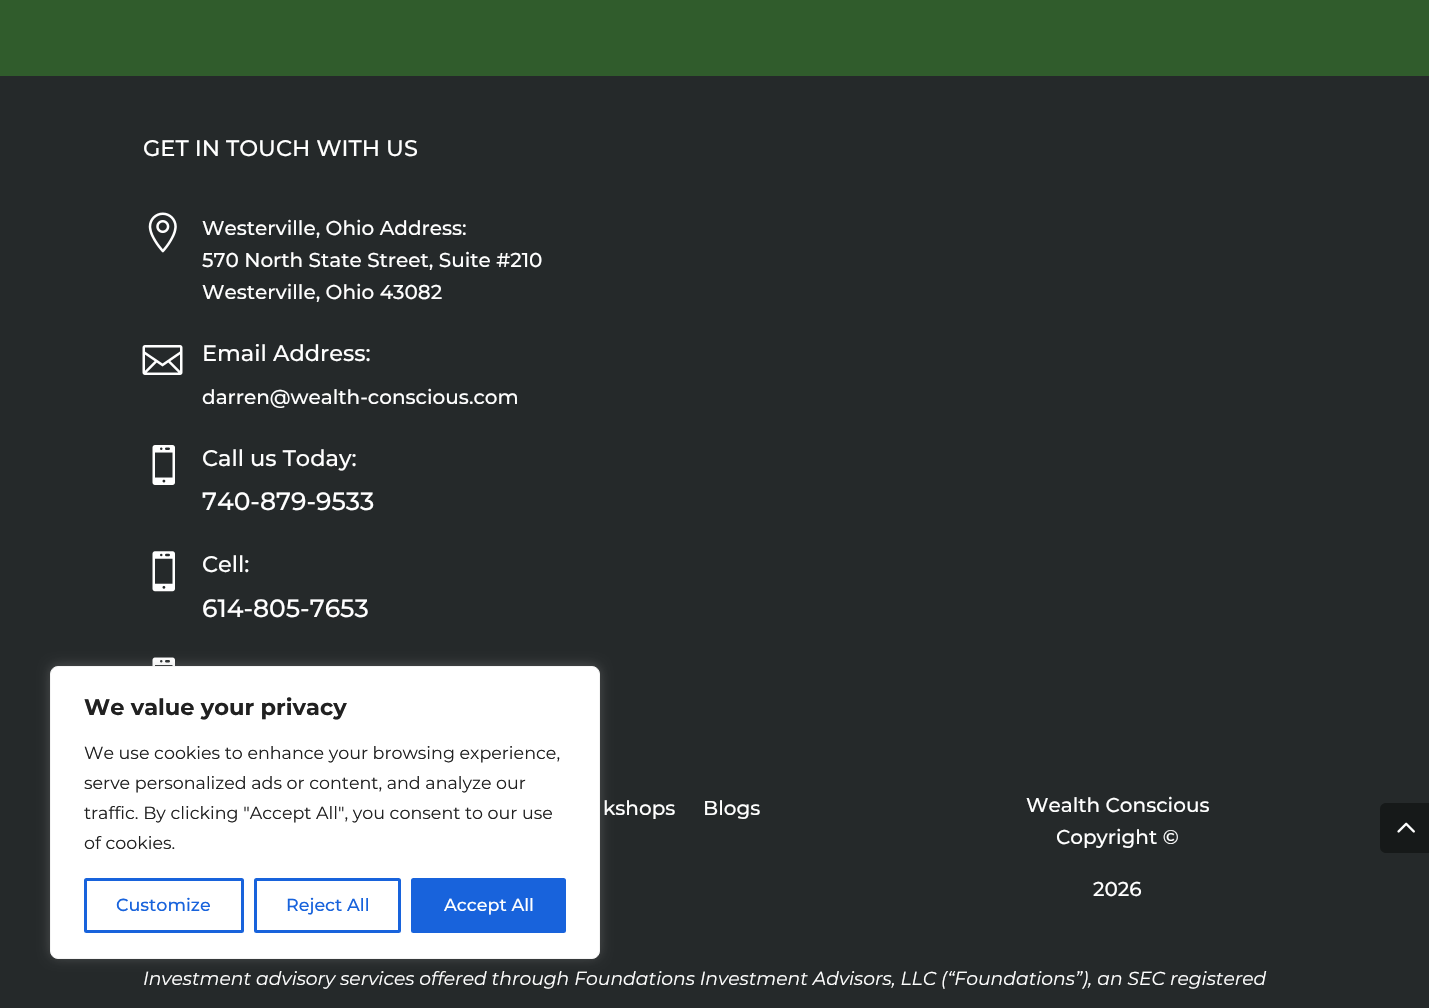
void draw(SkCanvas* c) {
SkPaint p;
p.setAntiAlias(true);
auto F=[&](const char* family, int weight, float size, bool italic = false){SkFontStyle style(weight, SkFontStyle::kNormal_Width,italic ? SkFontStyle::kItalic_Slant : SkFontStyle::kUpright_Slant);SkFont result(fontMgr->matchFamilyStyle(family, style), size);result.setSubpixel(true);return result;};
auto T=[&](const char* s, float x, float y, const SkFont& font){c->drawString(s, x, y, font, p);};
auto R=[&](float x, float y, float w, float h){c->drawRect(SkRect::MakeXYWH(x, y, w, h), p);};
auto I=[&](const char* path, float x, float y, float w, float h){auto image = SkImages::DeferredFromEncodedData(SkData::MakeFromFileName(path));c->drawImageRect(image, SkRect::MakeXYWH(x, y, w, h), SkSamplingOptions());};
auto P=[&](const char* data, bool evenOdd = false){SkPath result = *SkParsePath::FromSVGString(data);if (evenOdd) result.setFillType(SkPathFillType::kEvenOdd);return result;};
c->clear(0xff305c2c);
p.setColor(0xff25292a);
R(0,76,1429,932);
auto f1 = F("Montserrat",500,22.5);
p.setColor(0xffffffff);
T("GET IN TOUCH WITH US",143,156,f1);
I("1.png",148,212,29,41);
auto f2 = F("Montserrat",500,20);
T("Westerville, Ohio Address:",202,235,f2);
T("570 North State Street, Suite #210",202,267,f2);
T("Westerville, Ohio 43082",202,299,f2);
I("2.png",142,345,41,30);
T("Email Address:",202,361,f1);
T("darren@wealth-conscious.com",202,404,f2);
I("3.png",152,445,23,40);
T("Call us Today:",202,466,f1);
auto f3 = F("Montserrat",500,25);
T("740-879-9533",202,510,f3);
I("4.png",152,551,23,41);
T("Cell:",202,572,f1);
T("614-805-7653",202,617,f3);
I("5.png",152,657,23,9);
T("kshops",603,815,f2);
T("Blogs",703,815,f2);
T("Wealth Conscious",1026,812,f2);
T("Copyright ©",1056,844,f2);
T("2026",1093,896,f2);
auto f4 = F("Montserrat",400,18.75,true);
T("Investment advisory services offered through Foundations Investment Advisors, LLC (“Foundations”), an SEC registered",143,985,f4);
p.setColor(0x4dacabab);
p.setMaskFilter(SkMaskFilter::MakeBlur(kNormal_SkBlurStyle, 6));
c->drawRoundRect(SkRect::MakeXYWH(50,665,550,293),8,8,p);
p.setMaskFilter(nullptr);
p.setColor(0xffffffff);
c->drawRoundRect(SkRect::MakeXYWH(50.5,666.5,549,292),7.5,7.5,p);
p.setStroke(true);
p.setStrokeWidth(1);
p.setColor(0xfff4f4f4);
c->drawRoundRect(SkRect::MakeXYWH(50.5,666.5,549,292),7.5,7.5,p);
auto f5 = F("Montserrat",700,22.5);
p.setStroke(false);
p.setColor(0xff212121);
T("We value your privacy",84,715,f5);
auto f6 = F("Montserrat",400,17.5);
T("We use cookies to enhance your browsing experience,",84,759,f6);
T("serve personalized ads or content, and analyze our",84,789,f6);
T("traffic. By clicking \"Accept All\", you consent to our use",84,819,f6);
T("of cookies.",84,849,f6);
p.setStroke(true);
p.setStrokeWidth(3);
p.setColor(0xff1863dc);
c->drawRoundRect(SkRect::MakeXYWH(85.5,879.5,157,52),1,1,p);
auto f7 = F("Montserrat",500,17.5);
p.setStroke(false);
T("Customize",116,911,f7);
p.setStroke(true);
c->drawRoundRect(SkRect::MakeXYWH(255.5,879.5,144,52),1,1,p);
p.setStroke(false);
T("Reject All",286,911,f7);
c->drawRoundRect(SkRect::MakeXYWH(412.5,879.5,152,52),1,1,p);
p.setStroke(true);
c->drawRoundRect(SkRect::MakeXYWH(412.5,879.5,152,52),1,1,p);
p.setStroke(false);
p.setColor(0xffffffff);
T("Accept All",444,911,f7);
p.setColor(0xff161919);
c->drawPath(P("M1386 803h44v50h-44c-3.5 0-6-2.5-6-6v-38c0-3.5 2.5-6 6-6z"),p);
I("6.png",1397,822,18,11);
}
